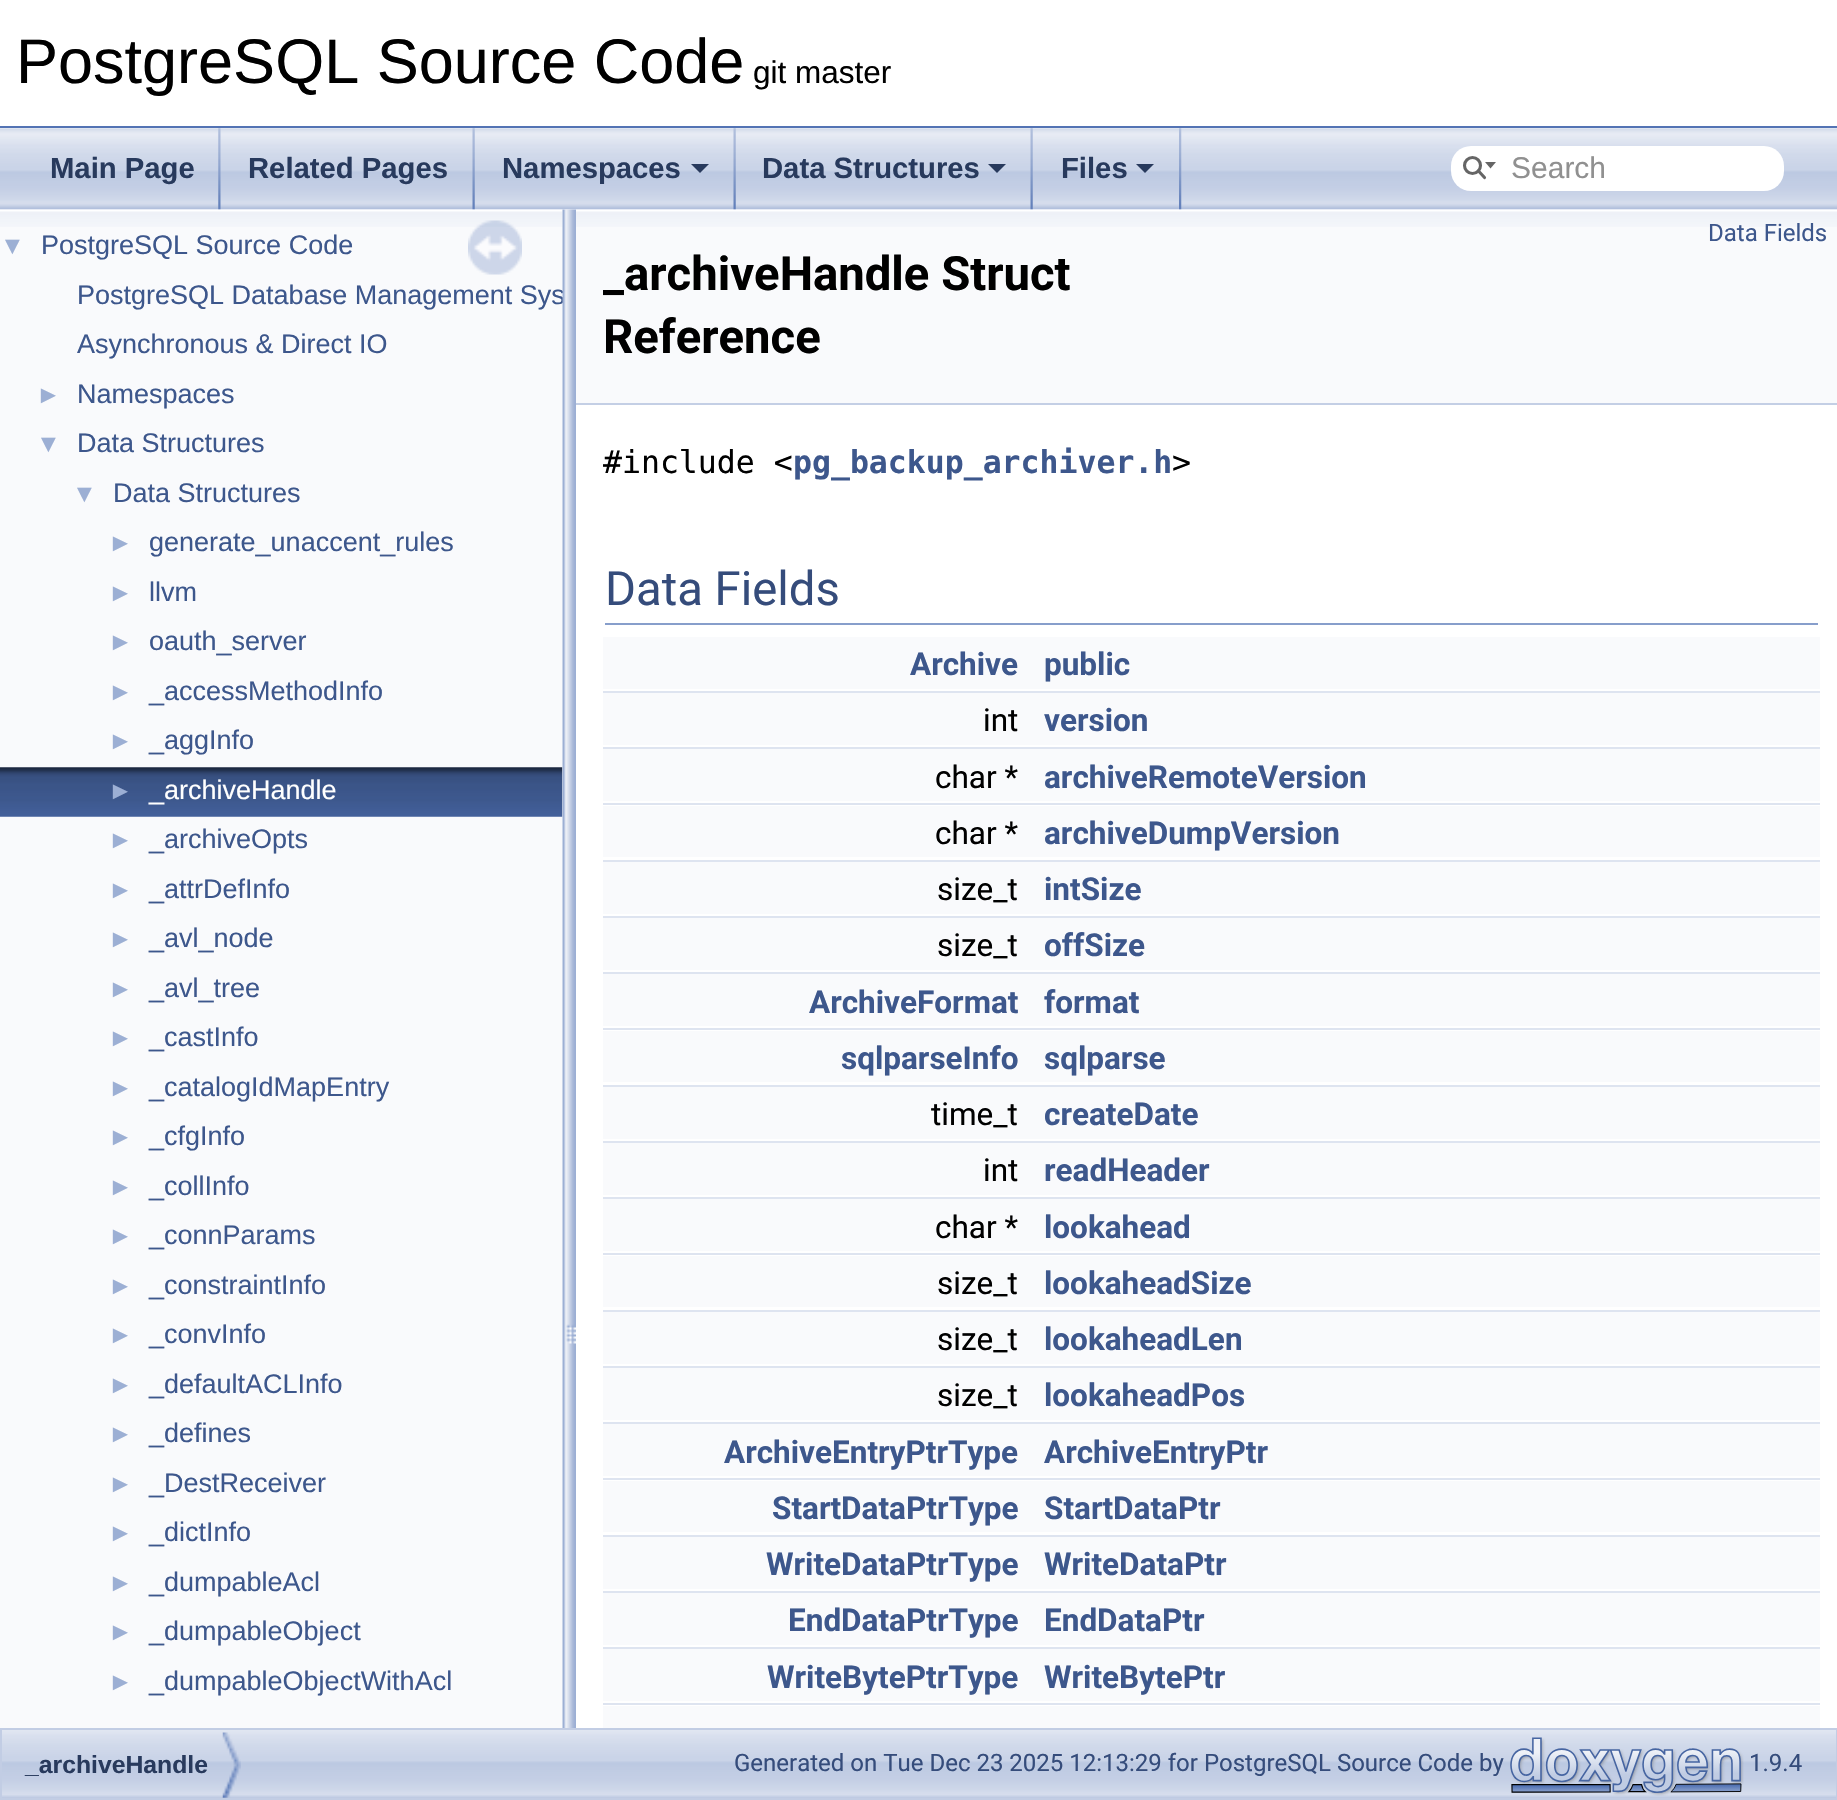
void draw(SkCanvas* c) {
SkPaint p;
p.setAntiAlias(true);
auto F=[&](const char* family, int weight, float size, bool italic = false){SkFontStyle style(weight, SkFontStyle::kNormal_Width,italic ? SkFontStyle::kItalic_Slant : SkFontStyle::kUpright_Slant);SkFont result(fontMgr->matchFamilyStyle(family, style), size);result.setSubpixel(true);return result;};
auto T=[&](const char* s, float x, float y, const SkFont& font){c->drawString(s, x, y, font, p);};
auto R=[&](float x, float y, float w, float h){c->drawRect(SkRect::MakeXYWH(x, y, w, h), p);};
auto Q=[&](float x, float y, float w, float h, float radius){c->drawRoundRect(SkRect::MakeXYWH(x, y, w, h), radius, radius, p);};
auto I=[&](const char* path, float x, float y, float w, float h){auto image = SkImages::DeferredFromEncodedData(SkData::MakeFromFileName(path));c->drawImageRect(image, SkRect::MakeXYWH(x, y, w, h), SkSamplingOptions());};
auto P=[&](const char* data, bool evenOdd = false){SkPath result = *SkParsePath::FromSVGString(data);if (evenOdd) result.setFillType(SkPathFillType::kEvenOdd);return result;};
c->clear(0xffffffff);
p.setColor(0xff5373b4);
R(0,126,1837,2);
auto f1 = F("Liberation Sans",400,63);
p.setColor(0xff000000);
T("PostgreSQL Source Code",16,83,f1);
auto f2 = F("Liberation Sans",400,31.5);
T("git master",753,83,f2);
p.setColor(0xfff9fafc);
R(0,209,563,1519);
I("5.png",0,210,563,17);
auto f3 = F("Liberation Sans",400,27);
p.setColor(0xff3d578c);
T("PostgreSQL Database Management Sys",77,304,f3);
I("7.png",0,767,563,50);
I("8.png",562,209,14,1519);
p.setColor(0xfff9fafc);
R(576,209,1261,194);
I("1.png",0,128,1837,82);
I("2.png",218,128,3,82);
auto f4 = F("Liberation Sans",700,29.25);
p.setColor(0xff283a5d);
T("Main Page",50,178,f4);
I("3.png",472,128,3,82);
T("Related Pages",248,178,f4);
I("3.png",733,128,3,82);
T("Namespaces",502,178,f4);
c->drawPath(P("M691 164h18l-9 9z"),p);
I("3.png",1030,128,3,82);
T("Data Structures",762,178,f4);
c->drawPath(P("M988 164h18l-9 9z"),p);
I("4.png",1179,128,3,82);
T("Files",1061,178,f4);
c->drawPath(P("M1136 164h18l-9 9z"),p);
p.setColor(0xffffffff);
Q(1451,146,333,45,20);
p.setStroke(true);
p.setStrokeWidth(3.1);
p.setColor(0xff656565);
c->drawCircle(1472.5,165.5,8,p);
p.setStroke(false);
c->drawPath(P("M1485 162l5.5 6.5l5.5-6.5z"),p);
p.setStroke(true);
p.setStrokeCap(SkPaint::kRound_Cap);
c->drawPath(P("M1478.5 171l6 6.5"),p);
auto f5 = F("Liberation Sans",400,30);
p.setStroke(false);
p.setColor(0xff909090);
T("Search",1511,178,f5);
I("6.png",468,220,54,55);
auto f6 = F("Liberation Sans",400,25);
p.setColor(0xff9cafd4);
T("▼",0,254,f6);
p.setColor(0xff3d578c);
T("PostgreSQL Source Code",41,254,f3);
T("Asynchronous & Direct IO",77,353,f3);
p.setColor(0xff9cafd4);
T("►",36,403,f6);
p.setColor(0xff3d578c);
T("Namespaces",77,403,f3);
p.setColor(0xff9cafd4);
T("▼",36,452,f6);
p.setColor(0xff3d578c);
T("Data Structures",77,452,f3);
p.setColor(0xff9cafd4);
T("▼",72,502,f6);
p.setColor(0xff3d578c);
T("Data Structures",113,502,f3);
p.setColor(0xff9cafd4);
T("►",108,551,f6);
p.setColor(0xff3d578c);
T("generate_unaccent_rules",149,551,f3);
p.setColor(0xff9cafd4);
T("►",108,601,f6);
p.setColor(0xff3d578c);
T("llvm",149,601,f3);
p.setColor(0xff9cafd4);
T("►",108,650,f6);
p.setColor(0xff3d578c);
T("oauth_server",149,650,f3);
p.setColor(0xff9cafd4);
T("►",108,700,f6);
p.setColor(0xff3d578c);
T("_accessMethodInfo",149,700,f3);
p.setColor(0xff9cafd4);
T("►",108,749,f6);
p.setColor(0xff3d578c);
T("_aggInfo",149,749,f3);
p.setColor(0xff9cafd4);
T("►",108,799,f6);
p.setColor(0xffffffff);
T("_archiveHandle",149,799,f3);
p.setColor(0xff9cafd4);
T("►",108,848,f6);
p.setColor(0xff3d578c);
T("_archiveOpts",149,848,f3);
p.setColor(0xff9cafd4);
T("►",108,898,f6);
p.setColor(0xff3d578c);
T("_attrDefInfo",149,898,f3);
p.setColor(0xff9cafd4);
T("►",108,947,f6);
p.setColor(0xff3d578c);
T("_avl_node",149,947,f3);
p.setColor(0xff9cafd4);
T("►",108,997,f6);
p.setColor(0xff3d578c);
T("_avl_tree",149,997,f3);
p.setColor(0xff9cafd4);
T("►",108,1046,f6);
p.setColor(0xff3d578c);
T("_castInfo",149,1046,f3);
p.setColor(0xff9cafd4);
T("►",108,1096,f6);
p.setColor(0xff3d578c);
T("_catalogIdMapEntry",149,1096,f3);
p.setColor(0xff9cafd4);
T("►",108,1145,f6);
p.setColor(0xff3d578c);
T("_cfgInfo",149,1145,f3);
p.setColor(0xff9cafd4);
T("►",108,1195,f6);
p.setColor(0xff3d578c);
T("_collInfo",149,1195,f3);
p.setColor(0xff9cafd4);
T("►",108,1244,f6);
p.setColor(0xff3d578c);
T("_connParams",149,1244,f3);
p.setColor(0xff9cafd4);
T("►",108,1294,f6);
p.setColor(0xff3d578c);
T("_constraintInfo",149,1294,f3);
p.setColor(0xff9cafd4);
T("►",108,1343,f6);
p.setColor(0xff3d578c);
T("_convInfo",149,1343,f3);
p.setColor(0xff9cafd4);
T("►",108,1393,f6);
p.setColor(0xff3d578c);
T("_defaultACLInfo",149,1393,f3);
p.setColor(0xff9cafd4);
T("►",108,1442,f6);
p.setColor(0xff3d578c);
T("_defines",149,1442,f3);
p.setColor(0xff9cafd4);
T("►",108,1492,f6);
p.setColor(0xff3d578c);
T("_DestReceiver",149,1492,f3);
p.setColor(0xff9cafd4);
T("►",108,1541,f6);
p.setColor(0xff3d578c);
T("_dictInfo",149,1541,f3);
p.setColor(0xff9cafd4);
T("►",108,1591,f6);
p.setColor(0xff3d578c);
T("_dumpableAcl",149,1591,f3);
p.setColor(0xff9cafd4);
T("►",108,1640,f6);
p.setColor(0xff3d578c);
T("_dumpableObject",149,1640,f3);
p.setColor(0xff9cafd4);
T("►",108,1690,f6);
p.setColor(0xff3d578c);
T("_dumpableObjectWithAcl",149,1690,f3);
I("9.png",576,210,1261,17);
p.setColor(0xffc4cfe5);
R(576,403,1261,2);
auto f7 = F("Roboto",400,24);
p.setColor(0xff3d578c);
T("Data Fields",1708,241,f7);
auto f8 = F("Roboto",700,47.25);
p.setColor(0xff000000);
T("_archiveHandle Struct",603,290,f8);
T("Reference",603,353,f8);
auto f9 = F("DejaVu Sans Mono",400,31.5);
T("#include <",603,473,f9);
auto f10 = F("DejaVu Sans Mono",700,31.5);
p.setColor(0xff3d578c);
T("pg_backup_archiver.h",793,473,f10);
p.setColor(0xff000000);
T(">",1172,473,f9);
p.setColor(0xff879ecb);
R(605,623,1213,2);
auto f11 = F("Roboto",400,47.25);
p.setColor(0xff354c7b);
T("Data Fields",605,605,f11);
p.setColor(0xfff9fafc);
R(603,637,1217,52);
auto f12 = F("Roboto",700,31.5);
p.setColor(0xff3d578c);
T("Archive",910,675,f12);
T("public",1044,675,f12);
p.setColor(0xffdee4f0);
R(603,691,1217,2);
p.setColor(0xfff9fafc);
R(603,693,1217,52);
auto f13 = F("Roboto",400,31.5);
p.setColor(0xff000000);
T("int",983,731,f13);
p.setColor(0xff3d578c);
T("version",1044,731,f12);
p.setColor(0xffdee4f0);
R(603,747,1217,2);
p.setColor(0xfff9fafc);
R(603,749,1217,52);
p.setColor(0xff000000);
T("char *",935,788,f13);
p.setColor(0xff3d578c);
T("archiveRemoteVersion",1044,788,f12);
p.setColor(0xffdee4f0);
R(603,803,1217,2);
p.setColor(0xfff9fafc);
R(603,806,1217,51);
p.setColor(0xff000000);
T("char *",935,844,f13);
p.setColor(0xff3d578c);
T("archiveDumpVersion",1044,844,f12);
p.setColor(0xffdee4f0);
R(603,860,1217,2);
p.setColor(0xfff9fafc);
R(603,862,1217,52);
p.setColor(0xff000000);
T("size_t",937,900,f13);
p.setColor(0xff3d578c);
T("intSize",1044,900,f12);
p.setColor(0xffdee4f0);
R(603,916,1217,2);
p.setColor(0xfff9fafc);
R(603,918,1217,52);
p.setColor(0xff000000);
T("size_t",937,956,f13);
p.setColor(0xff3d578c);
T("offSize",1044,956,f12);
p.setColor(0xffdee4f0);
R(603,972,1217,2);
p.setColor(0xfff9fafc);
R(603,974,1217,52);
p.setColor(0xff3d578c);
T("ArchiveFormat",809,1013,f12);
T("format",1044,1013,f12);
p.setColor(0xffdee4f0);
R(603,1028,1217,2);
p.setColor(0xfff9fafc);
R(603,1031,1217,51);
p.setColor(0xff3d578c);
T("sqlparseInfo",841,1069,f12);
T("sqlparse",1044,1069,f12);
p.setColor(0xffdee4f0);
R(603,1085,1217,2);
p.setColor(0xfff9fafc);
R(603,1087,1217,52);
p.setColor(0xff000000);
T("time_t",931,1125,f13);
p.setColor(0xff3d578c);
T("createDate",1044,1125,f12);
p.setColor(0xffdee4f0);
R(603,1141,1217,2);
p.setColor(0xfff9fafc);
R(603,1143,1217,52);
p.setColor(0xff000000);
T("int",983,1181,f13);
p.setColor(0xff3d578c);
T("readHeader",1044,1181,f12);
p.setColor(0xffdee4f0);
R(603,1197,1217,2);
p.setColor(0xfff9fafc);
R(603,1199,1217,52);
p.setColor(0xff000000);
T("char *",935,1238,f13);
p.setColor(0xff3d578c);
T("lookahead",1044,1238,f12);
p.setColor(0xffdee4f0);
R(603,1253,1217,2);
p.setColor(0xfff9fafc);
R(603,1256,1217,51);
p.setColor(0xff000000);
T("size_t",937,1294,f13);
p.setColor(0xff3d578c);
T("lookaheadSize",1044,1294,f12);
p.setColor(0xffdee4f0);
R(603,1310,1217,2);
p.setColor(0xfff9fafc);
R(603,1312,1217,52);
p.setColor(0xff000000);
T("size_t",937,1350,f13);
p.setColor(0xff3d578c);
T("lookaheadLen",1044,1350,f12);
p.setColor(0xffdee4f0);
R(603,1366,1217,2);
p.setColor(0xfff9fafc);
R(603,1368,1217,52);
p.setColor(0xff000000);
T("size_t",937,1406,f13);
p.setColor(0xff3d578c);
T("lookaheadPos",1044,1406,f12);
p.setColor(0xffdee4f0);
R(603,1422,1217,2);
p.setColor(0xfff9fafc);
R(603,1424,1217,52);
p.setColor(0xff3d578c);
T("ArchiveEntryPtrType",724,1463,f12);
T("ArchiveEntryPtr",1044,1463,f12);
p.setColor(0xffdee4f0);
R(603,1478,1217,2);
p.setColor(0xfff9fafc);
R(603,1481,1217,51);
p.setColor(0xff3d578c);
T("StartDataPtrType",772,1519,f12);
T("StartDataPtr",1044,1519,f12);
p.setColor(0xffdee4f0);
R(603,1535,1217,2);
p.setColor(0xfff9fafc);
R(603,1537,1217,52);
p.setColor(0xff3d578c);
T("WriteDataPtrType",766,1575,f12);
T("WriteDataPtr",1044,1575,f12);
p.setColor(0xffdee4f0);
R(603,1591,1217,2);
p.setColor(0xfff9fafc);
R(603,1593,1217,52);
p.setColor(0xff3d578c);
T("EndDataPtrType",788,1631,f12);
T("EndDataPtr",1044,1631,f12);
p.setColor(0xffdee4f0);
R(603,1647,1217,2);
p.setColor(0xfff9fafc);
R(603,1649,1217,52);
p.setColor(0xff3d578c);
T("WriteBytePtrType",767,1688,f12);
T("WriteBytePtr",1044,1688,f12);
p.setColor(0xffdee4f0);
R(603,1703,1217,2);
p.setColor(0xfff9fafc);
R(603,1706,1217,22);
I("10.png",2,1730,1834,68);
p.setStroke(true);
p.setStrokeWidth(2);
p.setStrokeCap(SkPaint::kButt_Cap);
p.setColor(0xffc2cde4);
c->drawRect(SkRect::MakeXYWH(1,1729,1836,70),p);
I("11.png",222,1732,19,66);
auto f14 = F("Liberation Sans",700,24.75);
p.setStroke(false);
p.setColor(0xff283a5d);
T("_archiveHandle",25,1773,f14);
p.setColor(0xff354c7b);
T("Generated on Tue Dec 23 2025 12:13:29 for PostgreSQL Source Code by",734,1771,f7);
I("12.png",1510,1737,234,59);
T("1.9.4",1749,1771,f7);
}
